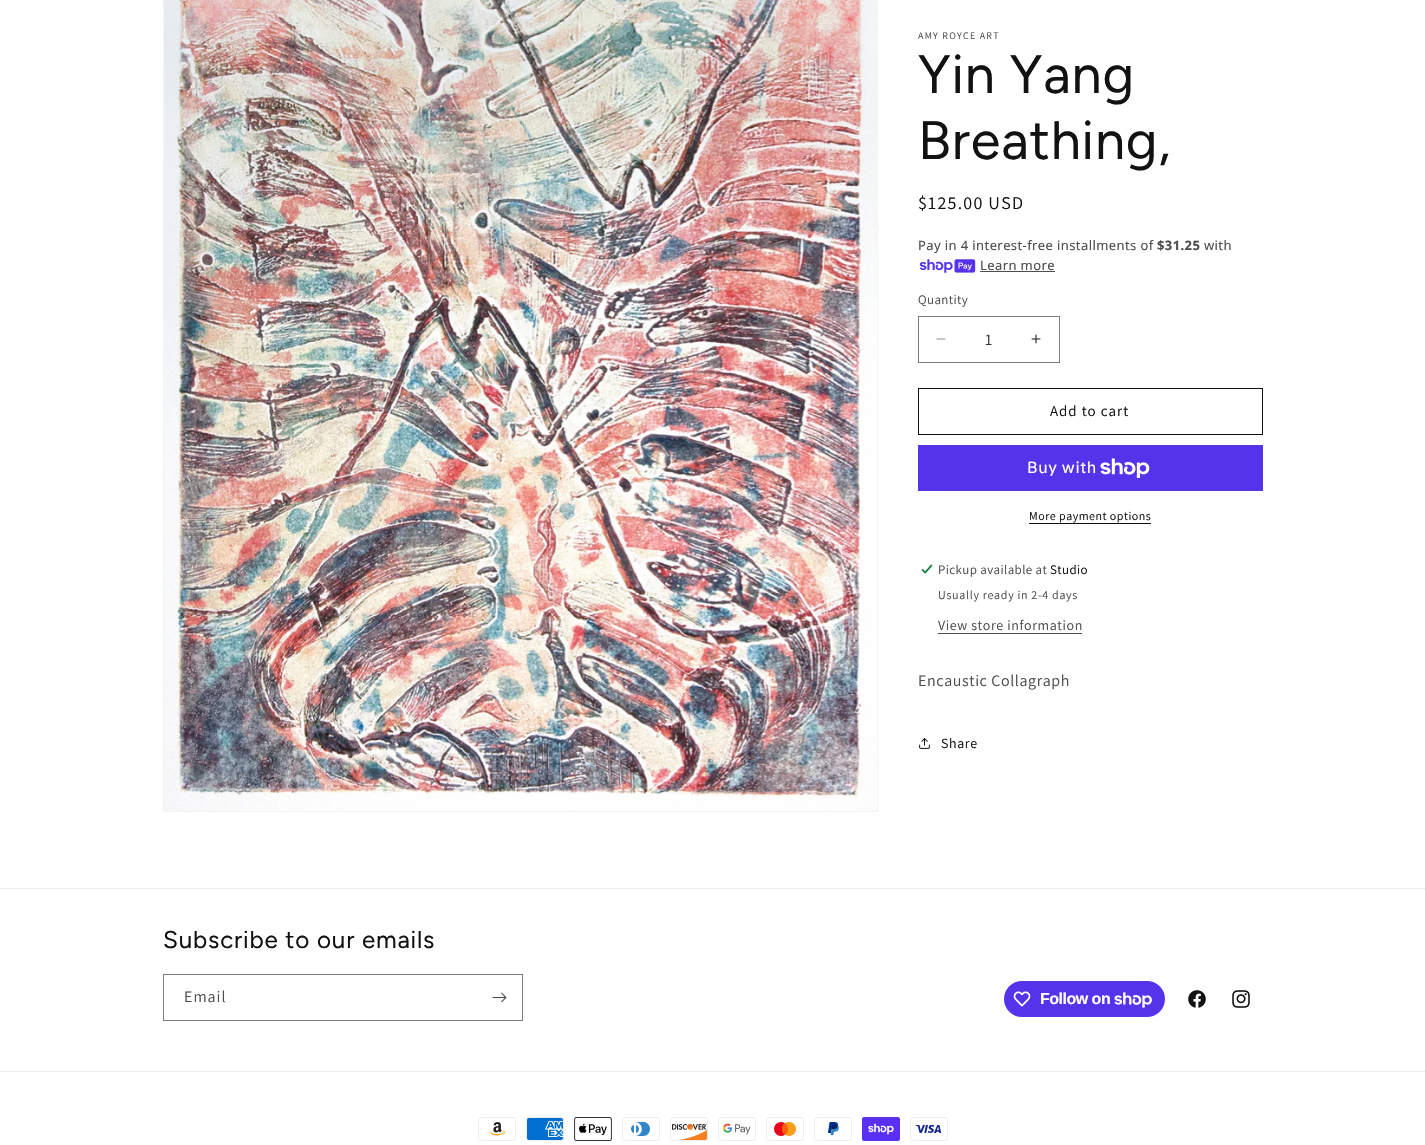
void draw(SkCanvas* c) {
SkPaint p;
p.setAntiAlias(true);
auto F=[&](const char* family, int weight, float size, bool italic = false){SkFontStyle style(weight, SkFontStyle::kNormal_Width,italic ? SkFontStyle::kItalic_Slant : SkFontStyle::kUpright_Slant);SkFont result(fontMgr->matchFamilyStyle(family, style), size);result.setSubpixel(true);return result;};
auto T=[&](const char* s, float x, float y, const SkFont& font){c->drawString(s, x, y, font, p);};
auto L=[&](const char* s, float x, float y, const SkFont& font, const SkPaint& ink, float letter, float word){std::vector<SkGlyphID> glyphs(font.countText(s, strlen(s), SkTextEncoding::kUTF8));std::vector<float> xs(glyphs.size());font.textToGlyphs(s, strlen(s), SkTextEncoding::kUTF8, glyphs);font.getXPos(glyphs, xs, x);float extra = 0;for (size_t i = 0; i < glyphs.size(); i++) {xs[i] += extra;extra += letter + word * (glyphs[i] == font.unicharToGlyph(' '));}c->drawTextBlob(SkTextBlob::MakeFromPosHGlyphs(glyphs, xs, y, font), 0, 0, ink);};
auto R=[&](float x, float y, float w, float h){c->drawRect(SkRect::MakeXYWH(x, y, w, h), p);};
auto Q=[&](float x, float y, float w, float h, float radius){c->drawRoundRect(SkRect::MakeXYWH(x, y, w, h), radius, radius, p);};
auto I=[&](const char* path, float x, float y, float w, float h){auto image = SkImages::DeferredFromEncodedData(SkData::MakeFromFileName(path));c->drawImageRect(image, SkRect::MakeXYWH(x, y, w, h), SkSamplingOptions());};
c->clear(0xffffffff);
p.setStroke(true);
p.setStrokeWidth(1);
p.setColor(0xfff3f3f3);
c->drawRect(SkRect::MakeXYWH(163.5,-.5,714,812),p);
I("1.png",164,0,713,811);
auto f1 = F("Assistant",400,10);
p.setStroke(false);
p.setColor(0xff4d4d4d);
L("AMY ROYCE ART",918,39,f1,p,1.25,0);
auto f2 = F("Figtree",400,54);
p.setColor(0xff121212);
L("Yin Yang",918,93,f2,p,.8,0);
L("Breathing,",918,159,f2,p,.8,0);
auto f3 = F("Assistant",400,18);
L("$125.00 USD",918,209,f3,p,1.25,0);
auto f4 = F("Noto Sans",400,13);
p.setColor(0xff4d4d4d);
L("Pay in 4 interest-free installments of",918,250,f4,p,.4,0);
auto f5 = F("Noto Sans",700,13);
L("$31.25",1157,250,f5,p,.4,0);
L("with",1204,250,f4,p,.4,0);
I("2.png",919,259,57,14);
L("Learn more",980,270,f4,p,.4,0);
R(980,271,75,1);
auto f6 = F("Assistant",400,13);
L("Quantity",918,304,f6,p,.4,0);
I("3.png",936,338,10,2);
I("4.png",1031,334,10,10);
p.setStroke(true);
p.setColor(0xff7d7d7d);
c->drawRect(SkRect::MakeXYWH(918.5,316.5,141,46),p);
auto f7 = F("Assistant",400,16);
p.setStroke(false);
p.setColor(0xff363636);
T("1",985,345,f7);
p.setStroke(true);
p.setColor(0xff121212);
c->drawRect(SkRect::MakeXYWH(918.5,388.5,344,46),p);
auto f8 = F("Assistant",400,15);
p.setStroke(false);
L("Add to cart",1050,416,f8,p,1,0);
p.setColor(0xff5433eb);
R(918,445,345,46);
auto f9 = F("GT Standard",400,16);
p.setColor(0xffffffff);
L("Buy with",1027,473,f9,p,.6,0);
I("5.png",1100,458,50,20);
auto f10 = F("Assistant",400,12);
p.setColor(0xff121212);
L("More payment options",1029,520,f10,p,.5,0);
R(1029,523,122,1);
I("6.png",921,564,12,10);
p.setColor(0xff4d4d4d);
L("Pickup available at",938,574,f6,p,.4,0);
p.setColor(0xff121212);
L("Studio",1050,574,f6,p,.4,0);
p.setColor(0xff4d4d4d);
L("Usually ready in 2-4 days",938,599,f10,p,.7,0);
auto f11 = F("Assistant",400,14);
L("View store information",938,630,f11,p,.6,0);
R(938,633,144,1);
L("Encaustic Collagraph",918,686,f7,p,.6,0);
I("7.png",919,738,11,11);
p.setColor(0xff121212);
L("Share",941,748,f11,p,.6,0);
p.setColor(0xffececec);
R(0,888,1425,1);
auto f12 = F("Figtree",400,24.25);
p.setColor(0xff121212);
L("Subscribe to our emails",163,948,f12,p,.8,0);
p.setStroke(true);
p.setColor(0xff7d7d7d);
c->drawRect(SkRect::MakeXYWH(163.5,974.5,359,46),p);
p.setStroke(false);
p.setColor(0xff4d4d4d);
L("Email",184,1002,f7,p,1,0);
I("8.png",492,992,15,11);
p.setColor(0xff5433eb);
Q(1004,981,161,36,18);
I("9.png",1013,991,18,16);
auto f13 = F("Liberation Sans",700,16);
p.setColor(0xffffffff);
L("Follow on",1040,1004,f13,p,-.5,0);
I("10.png",1114,992,38,16);
I("11.png",1188,990,18,18);
I("12.png",1232,990,18,18);
p.setColor(0xffececec);
R(0,1071,1425,1);
I("13.png",478,1117,38,24);
I("14.png",526,1117,38,24);
I("15.png",574,1117,38,24);
I("16.png",622,1117,38,24);
I("17.png",670,1117,38,24);
I("18.png",718,1117,38,24);
I("19.png",766,1117,38,24);
I("20.png",814,1117,38,24);
I("21.png",862,1117,38,24);
I("22.png",910,1117,38,24);
}
